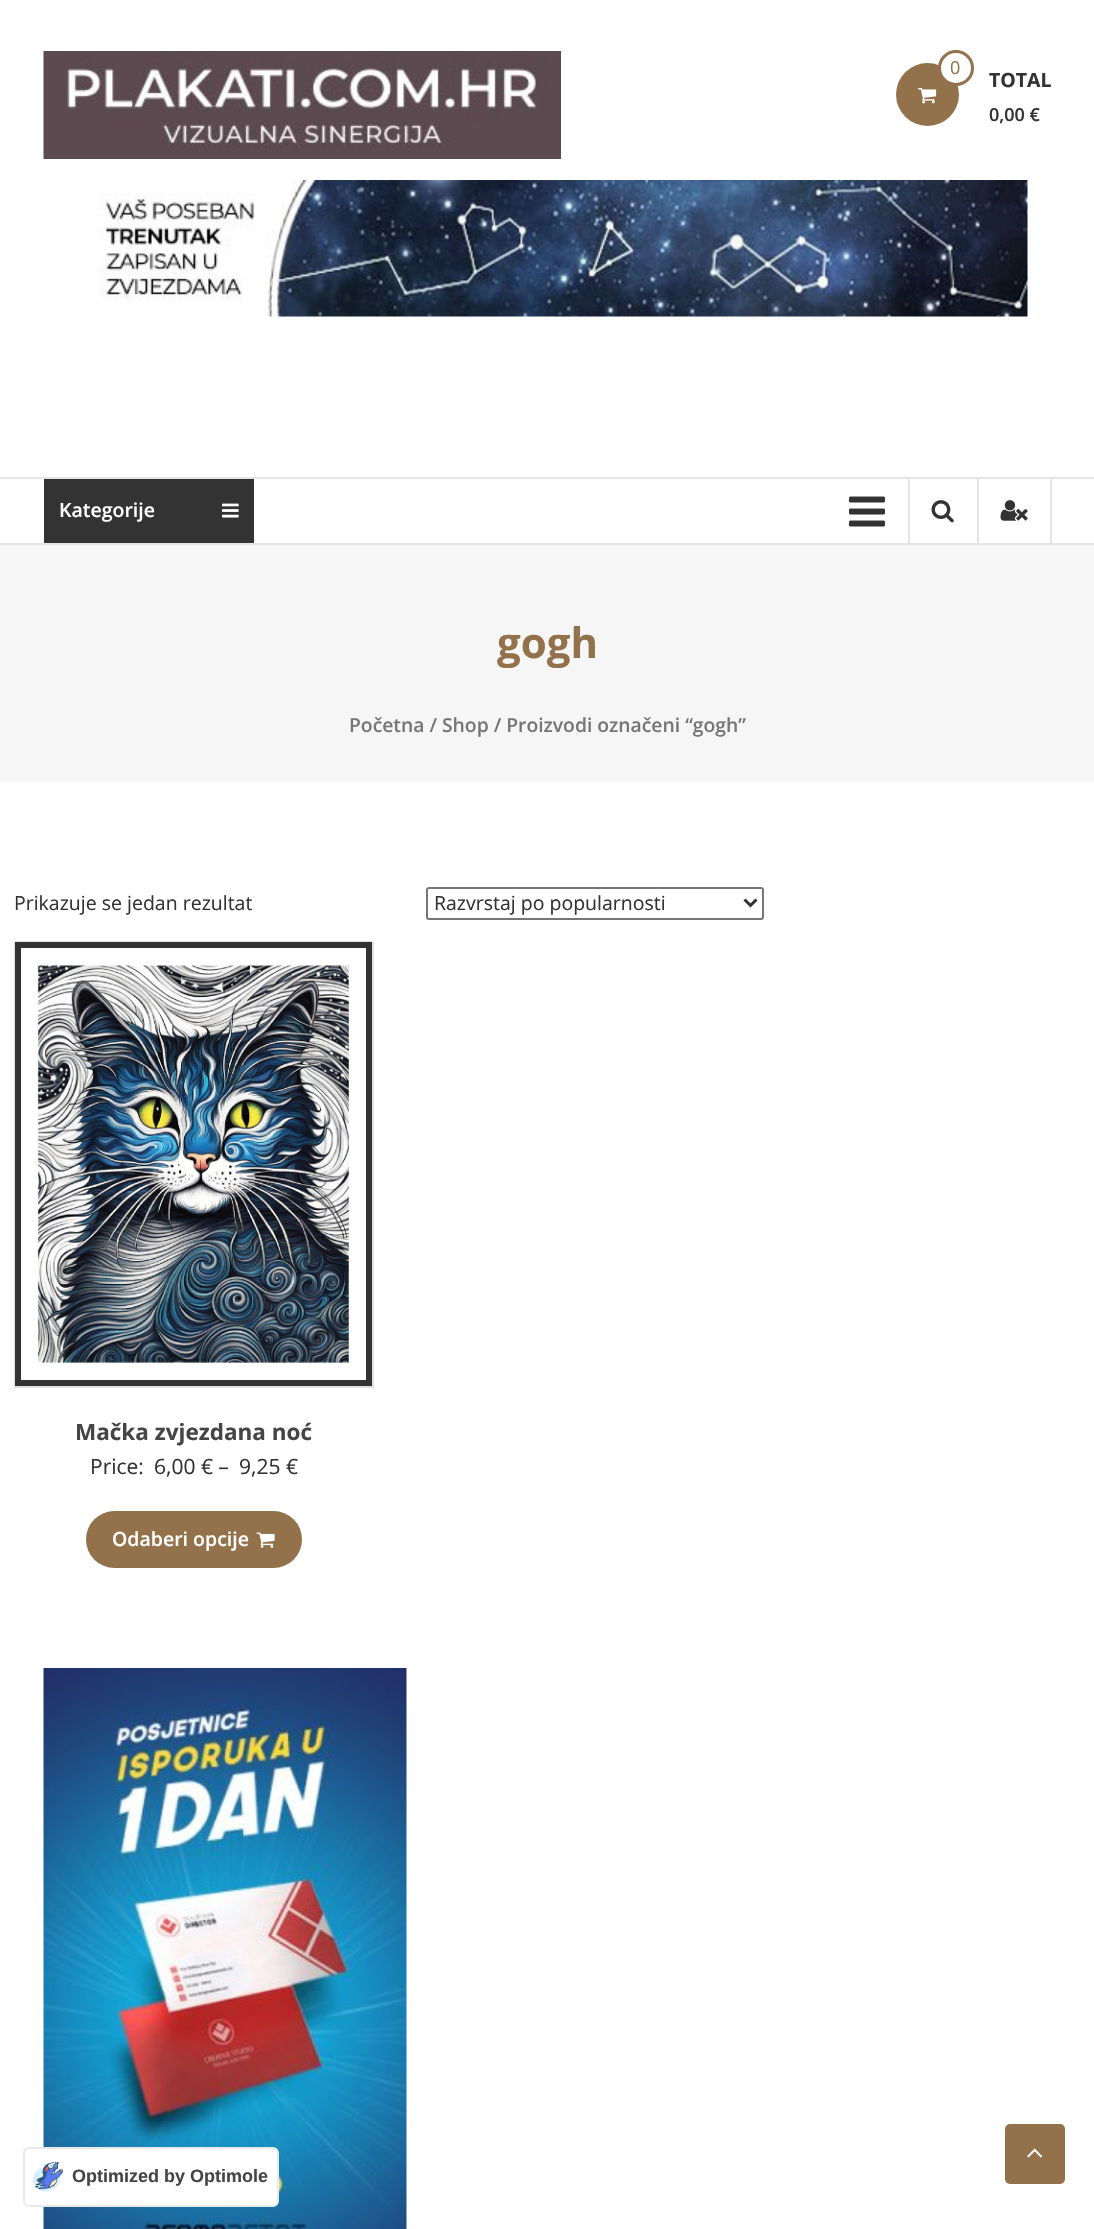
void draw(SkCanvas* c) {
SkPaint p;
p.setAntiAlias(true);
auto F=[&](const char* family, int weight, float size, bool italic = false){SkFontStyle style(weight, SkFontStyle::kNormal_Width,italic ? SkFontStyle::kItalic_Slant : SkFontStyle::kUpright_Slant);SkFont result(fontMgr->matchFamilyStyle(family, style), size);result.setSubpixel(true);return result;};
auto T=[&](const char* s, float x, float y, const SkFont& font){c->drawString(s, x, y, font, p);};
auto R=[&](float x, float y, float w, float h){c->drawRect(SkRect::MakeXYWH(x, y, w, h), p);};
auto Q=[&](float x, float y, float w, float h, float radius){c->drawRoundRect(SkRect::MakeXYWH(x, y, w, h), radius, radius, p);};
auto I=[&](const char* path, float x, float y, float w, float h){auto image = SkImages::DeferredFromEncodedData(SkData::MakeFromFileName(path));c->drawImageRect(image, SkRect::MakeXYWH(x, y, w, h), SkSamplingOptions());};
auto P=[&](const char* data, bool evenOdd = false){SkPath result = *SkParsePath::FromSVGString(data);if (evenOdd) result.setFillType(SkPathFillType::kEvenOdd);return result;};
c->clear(0xffffffff);
I("1.png",43,51,518,108);
p.setColor(0xff93724b);
c->drawCircle(927.5,94.5,31.5,p);
p.setColor(0xffffffff);
c->drawCircle(956,68,16.5,p);
p.setStroke(true);
p.setStrokeWidth(3);
p.setColor(0xff93724b);
c->drawCircle(956,68,16.5,p);
auto f1 = F("Open Sans",400,18);
p.setStroke(false);
T("0",950,74,f1);
I("2.png",918,88,19,16);
auto f2 = F("Open Sans",700,19.5);
p.setColor(0xff333333);
T("TOTAL",989,87,f2);
auto f3 = F("Open Sans",600,18);
T("0,00 €",989,121,f3);
I("3.png",99,180,929,137);
p.setColor(0xffe5e5e5);
R(0,477,1094,2);
R(0,543,1094,2);
p.setColor(0xff333333);
R(44,479,210,64);
auto f4 = F("Open Sans",600,19.5);
p.setColor(0xffffffff);
T("Kategorije",59,517,f4);
I("4.png",222,503,17,15);
I("5.png",849,496,36,31);
p.setColor(0xffe5e5e5);
R(908,479,2,64);
I("6.png",931,500,23,23);
R(1050,479,2,64);
R(977,479,2,64);
I("7.png",1000,500,28,21);
p.setColor(0xfff6f6f6);
R(0,545,1094,237);
auto f5 = F("Open Sans",700,42);
p.setColor(0xff93724b);
T("gogh",497,658,f5);
auto f6 = F("Open Sans",600,19.3);
p.setColor(0xff767676);
T("Početna / Shop / Proizvodi označeni “gogh”",349,732,f6);
auto f7 = F("Open Sans",400,19.5);
p.setColor(0xff333333);
T("Prikazuje se jedan rezultat",14,910,f7);
p.setStroke(true);
p.setStrokeWidth(2);
p.setColor(0xff767676);
c->drawRoundRect(SkRect::MakeXYWH(427,888,336,31),2,2,p);
p.setStrokeWidth(3);
p.setColor(0xff333333);
c->drawPath(P("M744.5 899.5l6 6l6-6"),p);
p.setStroke(false);
T("Razvrstaj po popularnosti",434,910,f7);
p.setStroke(true);
p.setStrokeWidth(2);
p.setColor(0xffe1e1e1);
c->drawRect(SkRect::MakeXYWH(15,942,358,445),p);
p.setStrokeWidth(6);
p.setColor(0xff333333);
c->drawRect(SkRect::MakeXYWH(18,945,351,438),p);
I("8.png",37,964,314,399);
auto f8 = F("Open Sans",700,22.5);
p.setStroke(false);
p.setColor(0xff454545);
T("Mačka zvjezdana noć",75,1440,f8);
auto f9 = F("Open Sans",400,21);
p.setColor(0xff333333);
T("Price:",90,1474,f9);
T("6,00 € –",154,1474,f9);
T("9,25 €",239,1474,f9);
p.setColor(0xff93724b);
Q(86,1511,216,57,28.5);
p.setColor(0xffffffff);
T("Odaberi opcije",112,1546,f4);
I("9.png",256,1532,19,16);
I("10.png",43,1668,364,561);
p.setColor(0xff93724b);
Q(1005,2124,60,60,5);
I("11.png",1027,2148,16,10);
p.setColor(0xffffffff);
c->drawRoundRect(SkRect::MakeXYWH(24,2148,254,58),5,5,p);
p.setStroke(true);
p.setStrokeWidth(2);
p.setColor(0xffe9e9e9);
c->drawRoundRect(SkRect::MakeXYWH(24,2148,254,58),5,5,p);
I("12.png",33,2162,30,30);
auto f10 = F("Liberation Sans",700,18);
p.setStroke(false);
p.setColor(0xff454545);
T("Optimized by Optimole",72,2182,f10);
}
